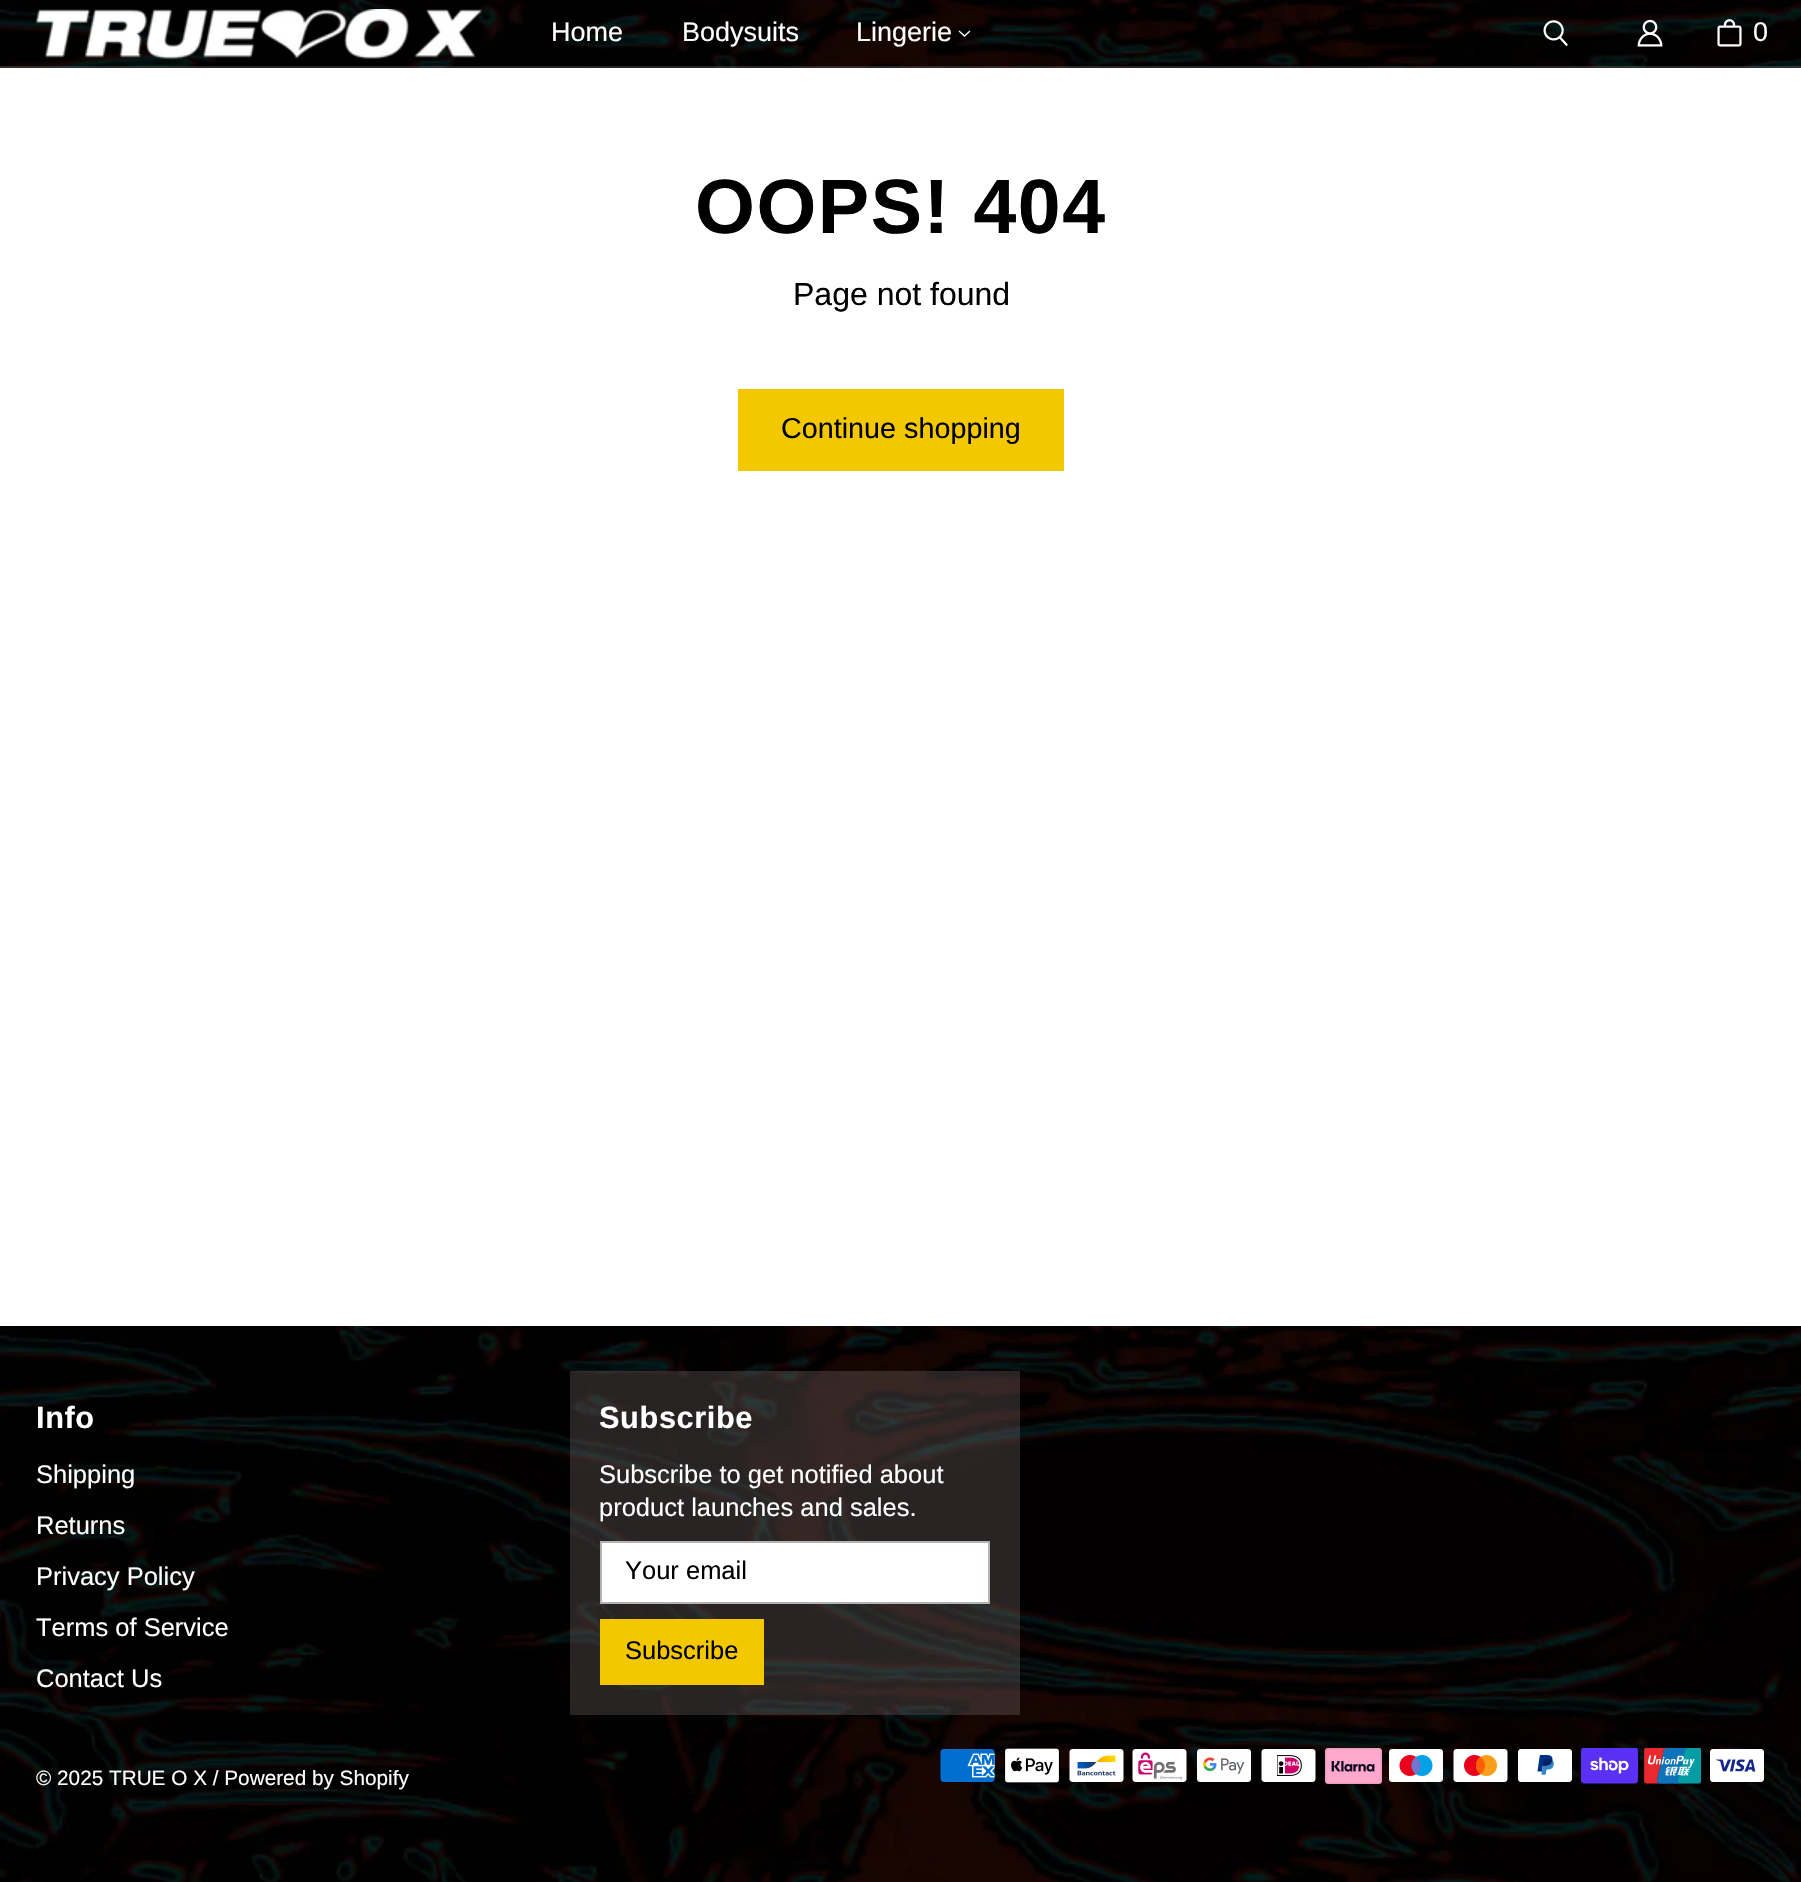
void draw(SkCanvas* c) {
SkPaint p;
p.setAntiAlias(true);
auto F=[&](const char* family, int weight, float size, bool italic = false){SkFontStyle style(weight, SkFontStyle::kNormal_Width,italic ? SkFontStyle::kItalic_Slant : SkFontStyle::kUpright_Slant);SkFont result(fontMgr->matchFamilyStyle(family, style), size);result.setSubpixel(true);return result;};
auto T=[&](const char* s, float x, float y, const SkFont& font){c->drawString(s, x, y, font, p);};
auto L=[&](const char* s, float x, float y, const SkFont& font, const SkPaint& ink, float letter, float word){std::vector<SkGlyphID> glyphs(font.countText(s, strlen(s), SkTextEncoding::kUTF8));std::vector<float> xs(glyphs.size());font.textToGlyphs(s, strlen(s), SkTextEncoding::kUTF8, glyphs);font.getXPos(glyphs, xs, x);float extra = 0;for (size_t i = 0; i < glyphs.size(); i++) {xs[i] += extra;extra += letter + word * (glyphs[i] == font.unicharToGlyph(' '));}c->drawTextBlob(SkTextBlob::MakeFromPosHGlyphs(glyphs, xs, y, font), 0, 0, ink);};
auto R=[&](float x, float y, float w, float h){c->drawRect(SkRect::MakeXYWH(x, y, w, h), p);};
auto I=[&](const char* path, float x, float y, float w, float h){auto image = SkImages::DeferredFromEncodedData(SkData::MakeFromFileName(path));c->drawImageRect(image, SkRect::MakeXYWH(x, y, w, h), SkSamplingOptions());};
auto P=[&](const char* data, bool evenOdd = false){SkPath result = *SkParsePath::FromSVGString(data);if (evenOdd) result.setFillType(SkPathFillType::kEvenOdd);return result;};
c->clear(0xffffffff);
p.setColor(0xff000000);
R(0,67,1801,1);
I("1.png",0,0,1801,68);
p.setColor(0x26ffffff);
R(0,66,1801,2);
I("2.png",36,9,446,50);
auto f1 = F("Liberation Sans",400,27);
p.setColor(0xffffffff);
T("Home",551,41,f1);
T("Bodysuits",682,41,f1);
T("Lingerie",856,41,f1);
p.setStroke(true);
p.setStrokeWidth(1.3);
c->drawPath(P("M959 31l5.5 5l5.5-5"),p);
I("3.png",1543,20,25,27);
I("4.png",1637,19,26,28);
I("5.png",1717,19,25,28);
p.setStroke(false);
T("0",1753,41,f1);
auto f2 = F("Liberation Sans",700,77);
p.setColor(0xff000000);
L("OOPS! 404",695,233,f2,p,1.5,0);
auto f3 = F("Liberation Sans",400,32);
T("Page not found",793,305,f3);
p.setColor(0xfff3c800);
R(738,389,326,82);
auto f4 = F("Liberation Sans",400,28.75);
p.setColor(0xff000000);
T("Continue shopping",781,438,f4);
I("6.png",0,1326,1801,556);
auto f5 = F("Liberation Sans",700,30.75);
p.setColor(0xffffffff);
L("Info",36,1428,f5,p,.6,0);
auto f6 = F("Liberation Sans",400,25.5);
T("Shipping",36,1483,f6);
T("Returns",36,1534,f6);
T("Privacy Policy",36,1585,f6);
T("Terms of Service",36,1636,f6);
T("Contact Us",36,1687,f6);
p.setColor(0x4d827373);
R(570,1371,450,344);
p.setColor(0xffffffff);
L("Subscribe",599,1428,f5,p,.6,0);
T("Subscribe to get notified about",599,1483,f6);
T("product launches and sales.",599,1516,f6);
c->drawRect(SkRect::MakeXYWH(601,1542,388,61),p);
p.setStroke(true);
p.setStrokeWidth(2);
p.setColor(0xffb3b3b3);
c->drawRect(SkRect::MakeXYWH(601,1542,388,61),p);
p.setStroke(false);
p.setColor(0xff000000);
T("Your email",625,1579,f6);
p.setColor(0xfff3c800);
R(600,1619,164,66);
p.setColor(0xff000000);
T("Subscribe",625,1659,f6);
auto f7 = F("Liberation Sans",400,20.75);
p.setColor(0xffffffff);
T("© 2025 TRUE O X / Powered by Shopify",36,1785,f7);
I("7.png",940,1749,55,33);
I("8.png",1004,1748,56,36);
I("9.png",1069,1749,55,33);
I("10.png",1132,1749,55,33);
I("11.png",1197,1749,54,33);
I("12.png",1261,1749,55,33);
I("13.png",1325,1748,57,36);
I("14.png",1389,1749,54,33);
I("15.png",1453,1749,55,33);
I("16.png",1518,1749,54,33);
I("17.png",1581,1748,57,36);
I("18.png",1644,1748,57,36);
I("19.png",1710,1749,54,33);
}
